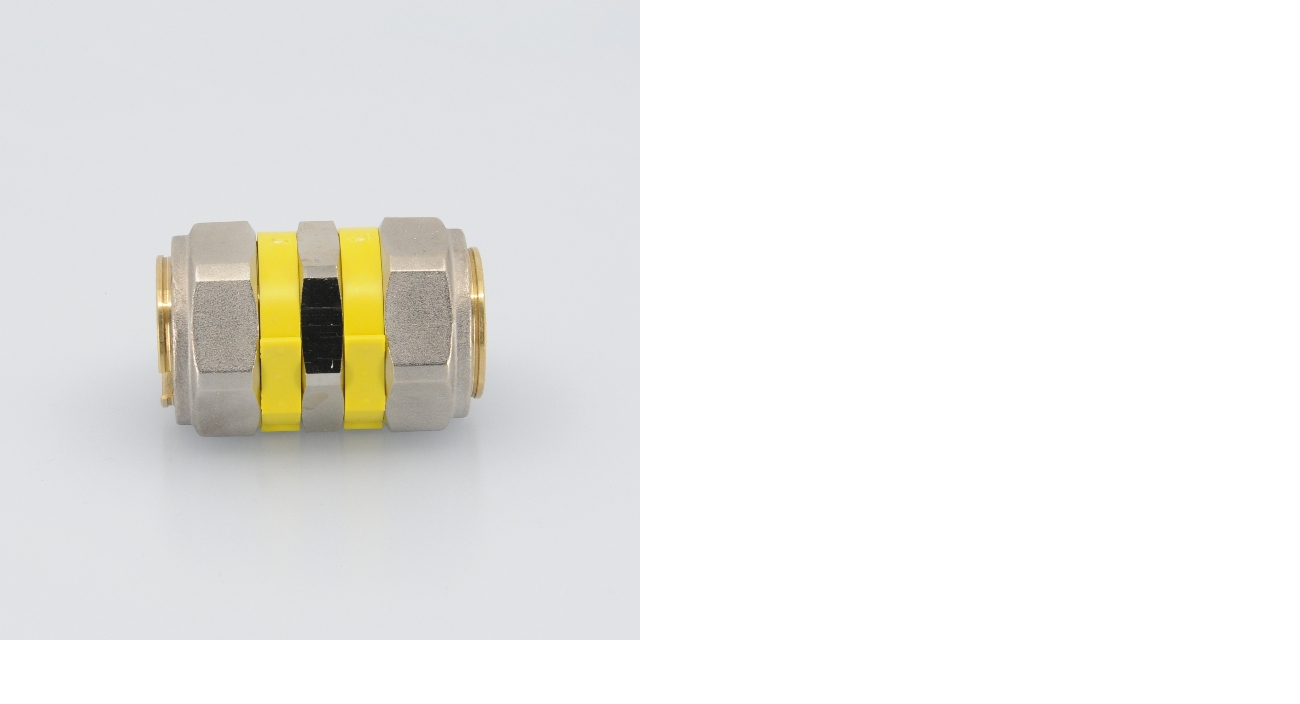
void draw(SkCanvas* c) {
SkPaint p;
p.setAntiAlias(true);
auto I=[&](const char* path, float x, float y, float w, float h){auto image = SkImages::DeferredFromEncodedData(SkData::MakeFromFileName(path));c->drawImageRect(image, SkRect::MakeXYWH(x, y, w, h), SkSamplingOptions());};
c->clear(0xffffffff);
I("1.png",0,0,640,640);
}
